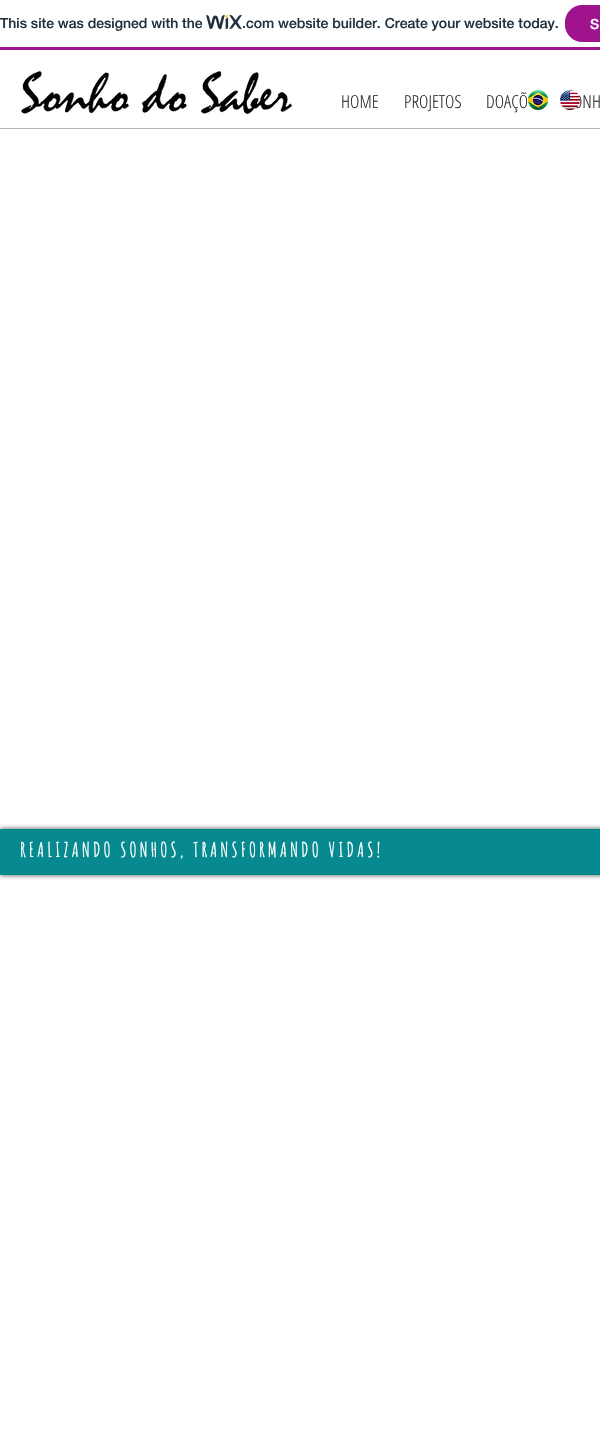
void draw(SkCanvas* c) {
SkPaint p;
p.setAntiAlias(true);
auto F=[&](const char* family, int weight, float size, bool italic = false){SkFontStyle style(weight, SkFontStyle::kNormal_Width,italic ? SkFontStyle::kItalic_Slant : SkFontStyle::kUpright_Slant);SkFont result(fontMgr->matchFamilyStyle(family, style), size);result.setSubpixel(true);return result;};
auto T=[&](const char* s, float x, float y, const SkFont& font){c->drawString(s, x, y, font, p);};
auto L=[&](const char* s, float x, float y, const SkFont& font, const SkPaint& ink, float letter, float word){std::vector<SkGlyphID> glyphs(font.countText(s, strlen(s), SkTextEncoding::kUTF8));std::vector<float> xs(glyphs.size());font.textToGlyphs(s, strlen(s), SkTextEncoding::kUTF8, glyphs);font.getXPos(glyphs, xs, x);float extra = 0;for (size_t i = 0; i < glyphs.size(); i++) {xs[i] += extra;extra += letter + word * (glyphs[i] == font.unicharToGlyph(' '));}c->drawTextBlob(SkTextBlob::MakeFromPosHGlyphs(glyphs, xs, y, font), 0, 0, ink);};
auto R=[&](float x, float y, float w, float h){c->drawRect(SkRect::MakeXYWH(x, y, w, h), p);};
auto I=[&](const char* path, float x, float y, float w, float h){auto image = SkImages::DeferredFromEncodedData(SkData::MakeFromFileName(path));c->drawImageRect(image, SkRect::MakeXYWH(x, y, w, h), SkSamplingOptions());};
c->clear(0xffffffff);
p.setColor(0xffa0138e);
R(0,47,600,3);
auto f1 = F("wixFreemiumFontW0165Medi",500,14);
p.setColor(0xff20303c);
T("This site was designed with the",0,28,f1);
I("1.png",206,15,36,15);
T(".com website builder. Create your website today.",242,28,f1);
p.setColor(0xffa0138e);
c->drawRoundRect(SkRect::MakeXYWH(565.5,5.5,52,36),16.5,16.5,p);
p.setStroke(true);
p.setStrokeWidth(1);
c->drawRoundRect(SkRect::MakeXYWH(565.5,5.5,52,36),16.5,16.5,p);
p.setStroke(false);
p.setColor(0xffffffff);
T("S",590,29,f1);
I("2.png",528,90,20,20);
auto f2 = F("Open Sans Condensed",300,18);
p.setColor(0xff2b2b2b);
T("ONH",573,108,f2);
I("3.png",560,90,20,20);
I("4.png",21,71,271,43);
T("HOME",341,108,f2);
T("PROJETOS",404,108,f2);
T("DOAÇÕ",486,108,f2);
p.setColor(0xffb7b6b6);
R(0,128,600,1);
p.setColor(0xb3000000);
p.setMaskFilter(SkMaskFilter::MakeBlur(kNormal_SkBlurStyle, 2.5));
c->drawRect(SkRect::MakeXYWH(0,829,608,46),p);
p.setMaskFilter(nullptr);
p.setColor(0xff068a8f);
R(0,829,600,46);
auto f3 = F("Amatic SC",700,20);
p.setColor(0xffffffff);
L("REALIZANDO SONHOS, TRANSFORMANDO VIDAS!",20,857,f3,p,3,0);
}
